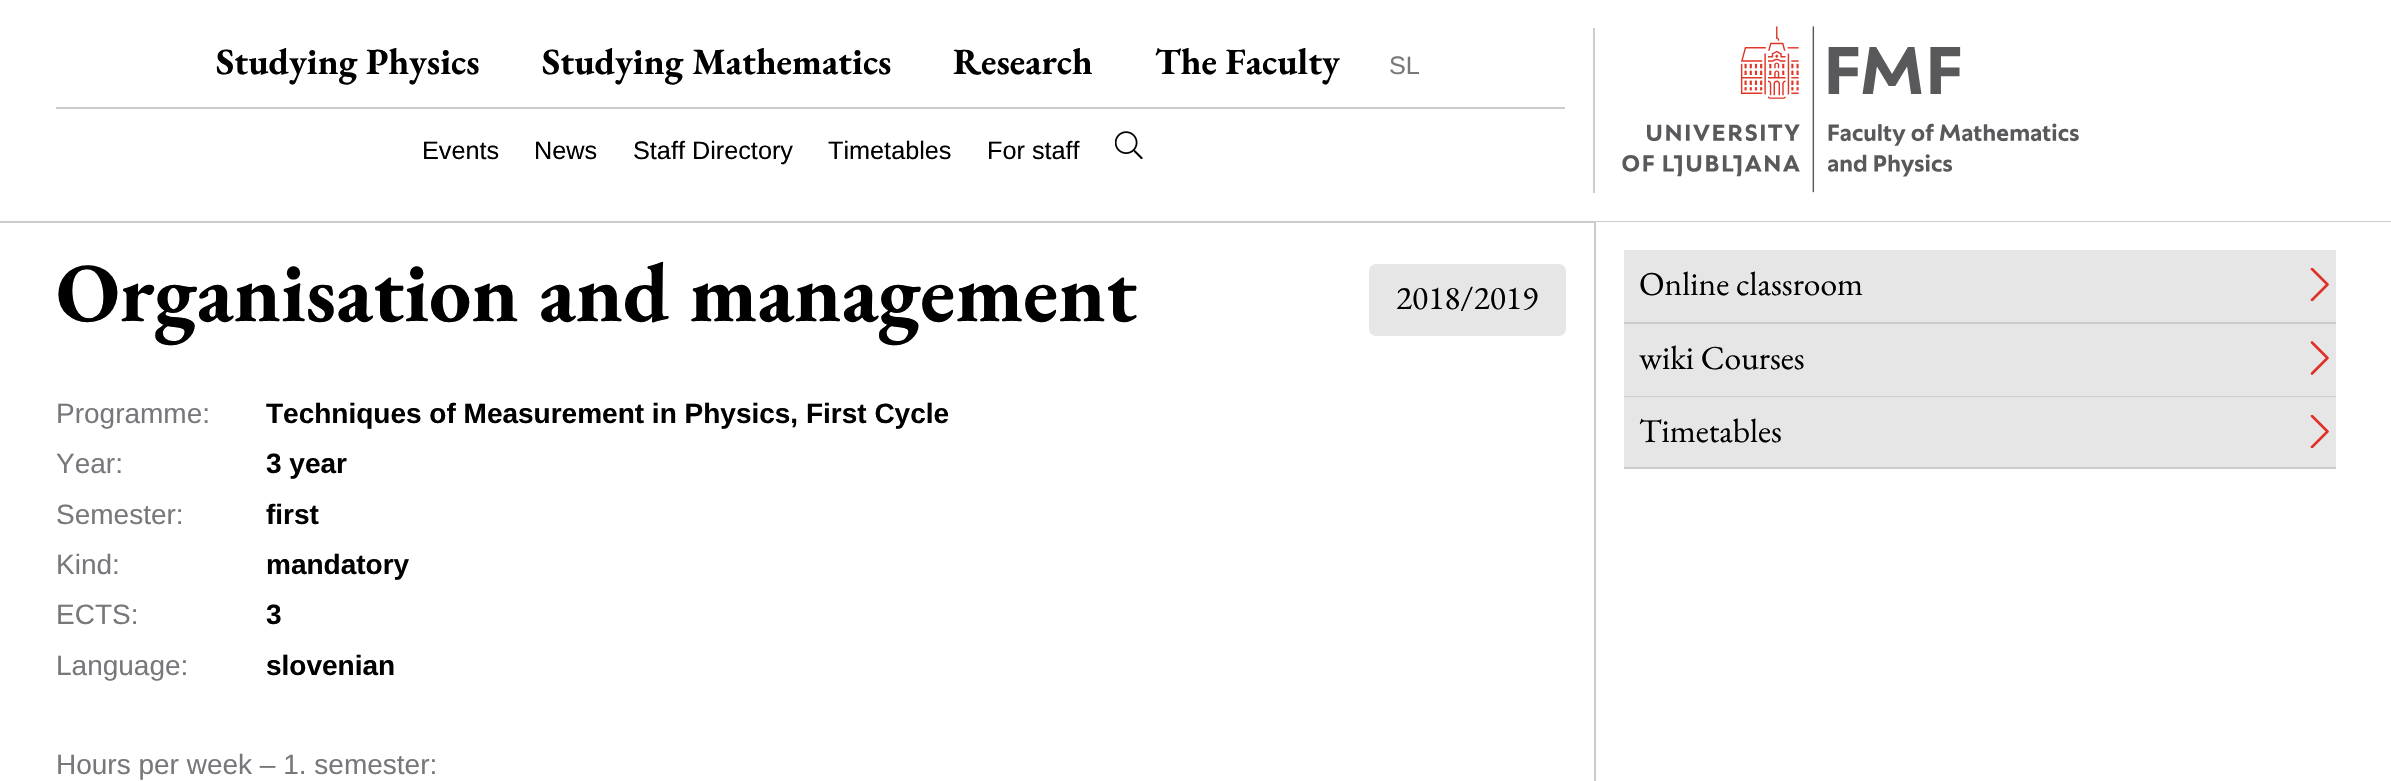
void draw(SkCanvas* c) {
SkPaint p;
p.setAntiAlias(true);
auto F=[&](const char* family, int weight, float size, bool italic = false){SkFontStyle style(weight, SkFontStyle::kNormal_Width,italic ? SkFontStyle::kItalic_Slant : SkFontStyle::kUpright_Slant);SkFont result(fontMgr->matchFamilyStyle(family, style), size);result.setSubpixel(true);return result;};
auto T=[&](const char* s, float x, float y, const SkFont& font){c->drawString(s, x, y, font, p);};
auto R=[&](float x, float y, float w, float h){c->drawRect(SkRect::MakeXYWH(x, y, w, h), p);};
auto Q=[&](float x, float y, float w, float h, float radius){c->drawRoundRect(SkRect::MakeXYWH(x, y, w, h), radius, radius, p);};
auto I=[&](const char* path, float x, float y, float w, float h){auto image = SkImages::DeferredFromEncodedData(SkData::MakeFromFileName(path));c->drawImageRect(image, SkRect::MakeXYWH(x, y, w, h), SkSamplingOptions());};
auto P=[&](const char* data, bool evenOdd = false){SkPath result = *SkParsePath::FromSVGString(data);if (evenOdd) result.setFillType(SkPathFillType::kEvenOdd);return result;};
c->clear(0xffffffff);
p.setColor(0xffcccccc);
R(0,221,2391,2);
R(1593,28,2,165);
R(56,107,1509,2);
auto f1 = F("EB Garamond",700,37);
p.setColor(0xff000000);
T("Studying Physics",216,74,f1);
T("Studying Mathematics",542,74,f1);
T("Research",953,74,f1);
T("The Faculty",1155,74,f1);
auto f2 = F("Liberation Sans",400,25.25);
p.setColor(0xff77787b);
T("SL",1389,74,f2);
p.setColor(0xff000000);
T("Events",422,159,f2);
T("News",534,159,f2);
T("Staff Directory",633,159,f2);
T("Timetables",828,159,f2);
T("For staff",987,159,f2);
I("1.png",1115,131,28,28);
I("2.png",1622,26,457,167);
auto f3 = F("EB Garamond",700,84);
T("Organisation and management",56,321,f3);
p.setColor(0xffe6e6e6);
Q(1369,264,197,72,7);
auto f4 = F("EB Garamond",400,33.5);
p.setColor(0xff000000);
T("2018/2019",1396,309,f4);
auto f5 = F("Liberation Sans",400,28);
p.setColor(0xff77787b);
T("Programme:",56,423,f5);
auto f6 = F("Liberation Sans",700,28);
p.setColor(0xff000000);
T("Techniques of Measurement in Physics, First Cycle",266,423,f6);
p.setColor(0xff77787b);
T("Year:",56,473,f5);
p.setColor(0xff000000);
T("3 year",266,473,f6);
p.setColor(0xff77787b);
T("Semester:",56,524,f5);
p.setColor(0xff000000);
T("first",266,524,f6);
p.setColor(0xff77787b);
T("Kind:",56,574,f5);
p.setColor(0xff000000);
T("mandatory",266,574,f6);
p.setColor(0xff77787b);
T("ECTS:",56,624,f5);
p.setColor(0xff000000);
T("3",266,624,f6);
p.setColor(0xff77787b);
T("Language:",56,675,f5);
p.setColor(0xff000000);
T("slovenian",266,675,f6);
p.setColor(0xff77787b);
T("Hours per week – 1. semester:",56,774,f5);
p.setColor(0xffffffff);
R(1596,222,795,1);
p.setColor(0xffcccccc);
R(1594,222,2,559);
p.setColor(0xffe6e6e6);
R(1624,250,712,72);
p.setColor(0xffcccccc);
R(1624,322,712,2);
p.setColor(0xff000000);
T("Online classroom",1639,295,f4);
c->save();
c->clipRect(SkRect::MakeXYWH(2303,268,33,33));
p.setStroke(true);
p.setStrokeWidth(2.6);
p.setStrokeCap(SkPaint::kRound_Cap);
p.setStrokeJoin(SkPaint::kRound_Join);
p.setColor(0xffdf3127);
c->drawPath(P("M2312 300l15.5-15.5l-15.5-15.5"),p);
c->restore();
p.setStroke(false);
p.setColor(0xffe6e6e6);
R(1624,324,712,72);
p.setColor(0xffcccccc);
R(1624,396,712,1);
p.setColor(0xff000000);
T("wiki Courses",1639,369,f4);
p.setStroke(true);
p.setColor(0xffdf3127);
c->drawPath(P("M2312 373.5l15.5-15.5l-15.5-15.5"),p);
p.setStroke(false);
p.setColor(0xffe6e6e6);
R(1624,397,712,70);
p.setColor(0xffcccccc);
R(1624,467,712,2);
p.setColor(0xff000000);
T("Timetables",1639,442,f4);
c->save();
c->clipRect(SkRect::MakeXYWH(2303,415,33,33));
p.setStroke(true);
p.setColor(0xffdf3127);
c->drawPath(P("M2312 447l15.5-15.5l-15.5-15.5"),p);
c->restore();
}
